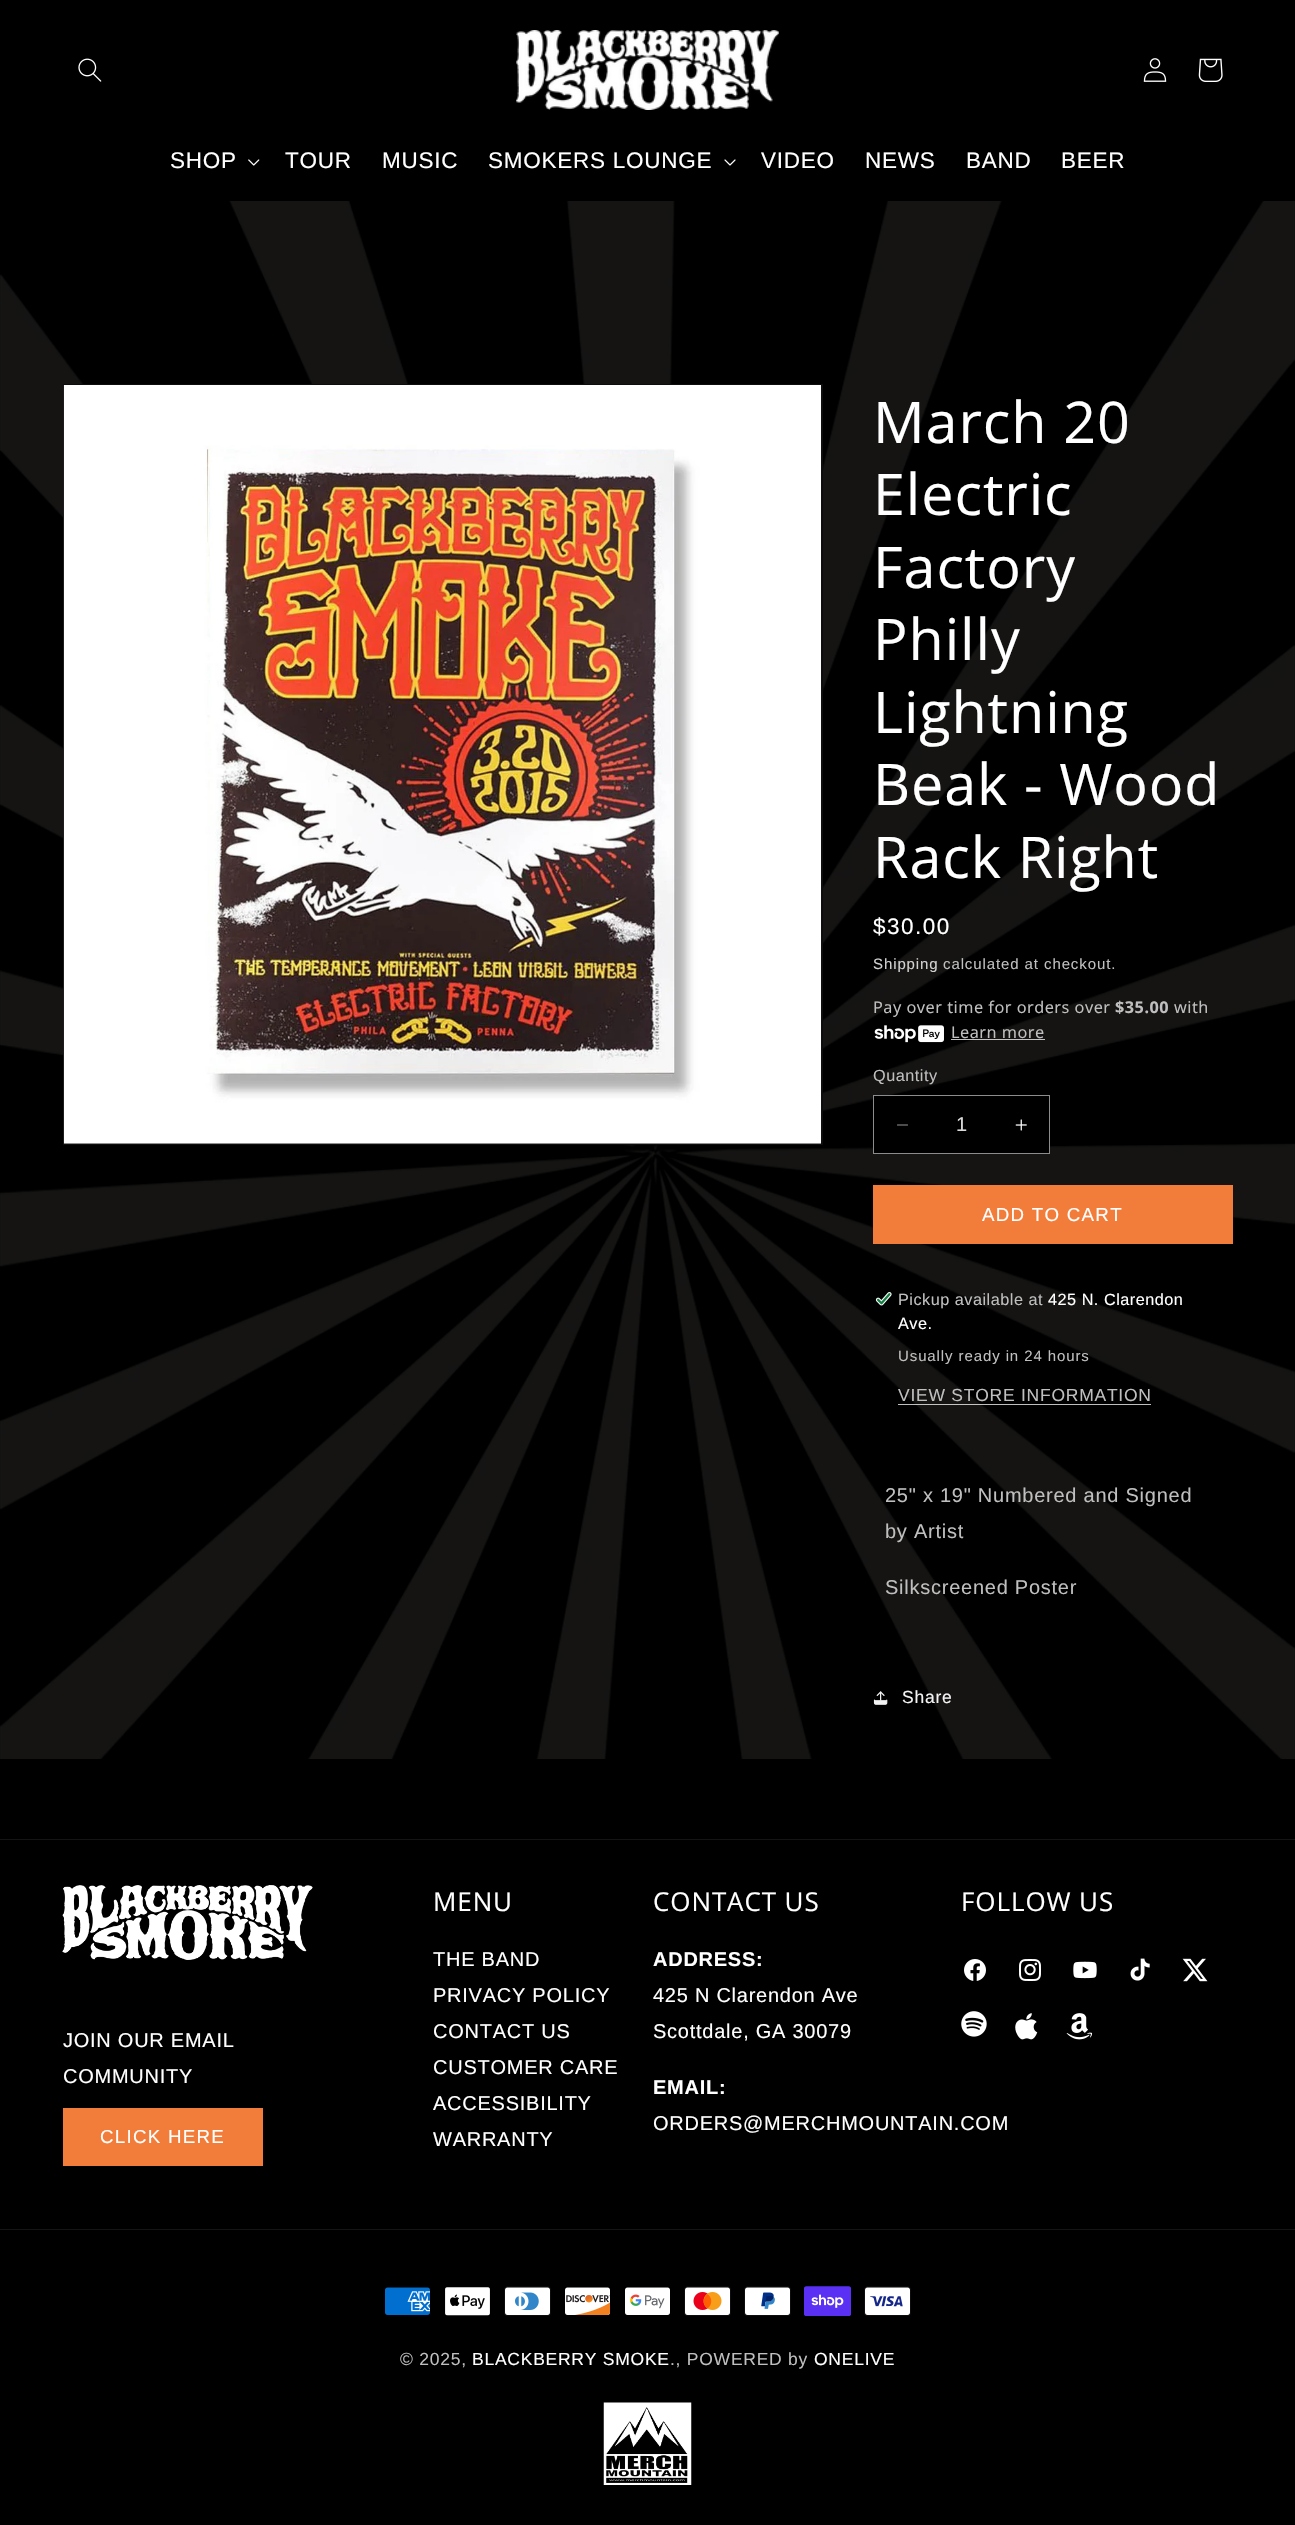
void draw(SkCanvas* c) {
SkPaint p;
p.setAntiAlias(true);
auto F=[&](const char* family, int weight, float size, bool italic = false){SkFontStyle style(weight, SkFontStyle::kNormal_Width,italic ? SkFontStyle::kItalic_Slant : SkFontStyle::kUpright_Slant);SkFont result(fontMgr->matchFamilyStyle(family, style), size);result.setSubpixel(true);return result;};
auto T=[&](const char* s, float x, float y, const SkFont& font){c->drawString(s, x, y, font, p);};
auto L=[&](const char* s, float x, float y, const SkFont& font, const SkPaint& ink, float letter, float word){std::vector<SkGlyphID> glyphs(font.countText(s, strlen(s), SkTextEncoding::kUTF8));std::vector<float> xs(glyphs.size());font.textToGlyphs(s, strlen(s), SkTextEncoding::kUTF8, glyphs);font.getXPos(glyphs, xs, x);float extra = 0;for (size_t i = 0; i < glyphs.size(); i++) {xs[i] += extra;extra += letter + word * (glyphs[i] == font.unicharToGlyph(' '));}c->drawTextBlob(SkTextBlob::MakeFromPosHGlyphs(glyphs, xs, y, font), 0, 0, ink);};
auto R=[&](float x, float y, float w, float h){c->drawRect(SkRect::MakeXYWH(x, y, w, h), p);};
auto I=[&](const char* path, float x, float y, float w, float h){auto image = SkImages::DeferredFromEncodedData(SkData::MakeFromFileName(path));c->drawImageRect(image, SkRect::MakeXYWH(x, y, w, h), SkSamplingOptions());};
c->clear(0xff000000);
I("1.png",0,201,1295,1558);
I("2.png",78,58,24,24);
I("3.png",516,30,263,80);
I("4.png",1143,58,24,24);
I("5.png",1198,58,25,24);
auto f1 = F("Liberation Sans",400,22.5);
p.setColor(0xffffffff);
L("SHOP",170,168,f1,p,.75,0);
I("6.png",248,159,12,7);
L("TOUR",285,168,f1,p,.75,0);
L("MUSIC",382,168,f1,p,.75,0);
L("SMOKERS LOUNGE",488,168,f1,p,.75,0);
I("7.png",724,159,12,7);
L("VIDEO",761,168,f1,p,.75,0);
L("NEWS",865,168,f1,p,.75,0);
L("BAND",966,168,f1,p,.75,0);
L("BEER",1061,168,f1,p,.75,0);
p.setColor(0xff000000);
c->drawRect(SkRect::MakeXYWH(63.5,384.5,759,760),p);
p.setStroke(true);
p.setStrokeWidth(1);
p.setColor(0xff0d0d0d);
c->drawRect(SkRect::MakeXYWH(63.5,384.5,759,760),p);
I("8.png",63,385,759,759);
auto f2 = F("Open Sans",400,57.5);
p.setStroke(false);
p.setColor(0xffffffff);
L("March 20",873,443,f2,p,.9,0);
L("Electric",873,515,f2,p,.9,0);
L("Factory",873,588,f2,p,.9,0);
L("Philly",873,660,f2,p,.9,0);
L("Lightning",873,733,f2,p,.9,0);
L("Beak - Wood",873,805,f2,p,.9,0);
L("Rack Right",873,878,f2,p,.9,0);
L("$30.00",873,934,f1,p,1.5,0);
auto f3 = F("Liberation Sans",400,15);
p.setColor(0xffd1d1d1);
L("Shipping",873,969,f3,p,.9,0);
p.setColor(0xffbfbfbf);
L("calculated at checkout.",943,969,f3,p,.9,0);
auto f4 = F("Noto Sans",400,16.25);
L("Pay over time for orders over",873,1013,f4,p,.5,0);
auto f5 = F("Noto Sans",700,16.25);
L("$35.00",1115,1013,f5,p,.5,0);
L("with",1174,1013,f4,p,.5,0);
I("9.png",874,1025,70,18);
L("Learn more",951,1038,f4,p,.5,0);
p.setColor(0xbfffffff);
R(951,1039,94,1);
auto f6 = F("Liberation Sans",400,16.25);
p.setColor(0xffbfbfbf);
L("Quantity",873,1081,f6,p,.5,0);
p.setColor(0xff000000);
R(874,1096,175,57);
I("10.png",897,1124,11,2);
I("11.png",1015,1119,12,12);
p.setStroke(true);
p.setColor(0xff8c8c8c);
c->drawRect(SkRect::MakeXYWH(873.5,1095.5,176,58),p);
auto f7 = F("Liberation Sans",400,20);
p.setStroke(false);
p.setColor(0xffd9d9d9);
T("1",956,1131,f7);
p.setColor(0xfff27d3a);
R(873,1185,360,59);
auto f8 = F("Liberation Sans",400,18.75);
p.setColor(0xffffffff);
L("ADD TO CART",982,1221,f8,p,1.25,0);
I("12.png",875,1292,17,14);
p.setColor(0xffbfbfbf);
L("Pickup available at",898,1305,f6,p,.5,0);
p.setColor(0xffffffff);
L("425 N. Clarendon",1048,1305,f6,p,.5,0);
L("Ave.",898,1329,f6,p,.5,0);
p.setColor(0xffbfbfbf);
L("Usually ready in 24 hours",898,1361,f3,p,.9,0);
auto f9 = F("Liberation Sans",400,17.5);
L("VIEW STORE INFORMATION",898,1401,f9,p,.75,0);
p.setColor(0xbfffffff);
R(898,1404,253,1);
p.setColor(0xffbfbfbf);
L("25\" x 19\" Numbered and Signed",885,1502,f7,p,.75,0);
L("by Artist",885,1538,f7,p,.75,0);
L("Silkscreened Poster",885,1594,f7,p,.75,0);
I("13.png",873,1691,15,14);
p.setColor(0xfff3f3f3);
L("Share",902,1703,f9,p,.75,0);
p.setColor(0xff141414);
R(0,1839,1295,1);
auto f10 = F("Open Sans",400,26);
p.setColor(0xffffffff);
L("MENU",433,1911,f10,p,.9,0);
L("THE BAND",433,1966,f7,p,.75,0);
L("PRIVACY POLICY",433,2002,f7,p,.75,0);
L("CONTACT US",433,2038,f7,p,.75,0);
L("CUSTOMER CARE",433,2074,f7,p,.75,0);
L("ACCESSIBILITY",433,2110,f7,p,.75,0);
L("WARRANTY",433,2146,f7,p,.75,0);
L("CONTACT US",653,1911,f10,p,.9,0);
auto f11 = F("Liberation Sans",700,20);
L("ADDRESS:",653,1966,f11,p,.75,0);
L("425 N Clarendon Ave",653,2002,f7,p,.75,0);
L("Scottdale, GA 30079",653,2038,f7,p,.75,0);
L("EMAIL:",653,2094,f11,p,.75,0);
L("ORDERS@MERCHMOUNTAIN.COM",653,2130,f7,p,.75,0);
L("FOLLOW US",961,1911,f10,p,.9,0);
I("14.png",964,1959,22,22);
I("15.png",1019,1959,22,22);
I("16.png",1073,1961,24,18);
I("17.png",1130,1958,20,23);
I("18.png",1182,1958,26,24);
I("19.png",961,2011,26,26);
I("20.png",1015,2013,23,27);
I("21.png",1066,2013,27,27);
I("22.png",62,1885,251,75);
L("JOIN OUR EMAIL",63,2047,f7,p,.75,0);
L("COMMUNITY",63,2083,f7,p,.75,0);
p.setColor(0xfff27d3a);
R(63,2108,200,58);
p.setColor(0xffffffff);
L("CLICK HERE",100,2143,f8,p,1.25,0);
p.setColor(0xff141414);
R(0,2229,1295,1);
I("23.png",385,2287,45,28);
I("24.png",445,2287,45,29);
I("25.png",504,2286,47,30);
I("26.png",565,2287,46,28);
I("27.png",625,2287,45,28);
I("28.png",684,2286,47,30);
I("29.png",744,2286,47,30);
I("30.png",804,2286,47,30);
I("31.png",864,2286,47,30);
p.setColor(0xffbfbfbf);
L("© 2025,",400,2365,f9,p,.75,0);
p.setColor(0xffffffff);
L("BLACKBERRY SMOKE",472,2365,f9,p,.75,0);
p.setColor(0xffbfbfbf);
L("., POWERED by",670,2365,f9,p,.75,0);
p.setColor(0xffffffff);
L("ONELIVE",814,2365,f9,p,.75,0);
I("32.png",603,2402,89,83);
}
